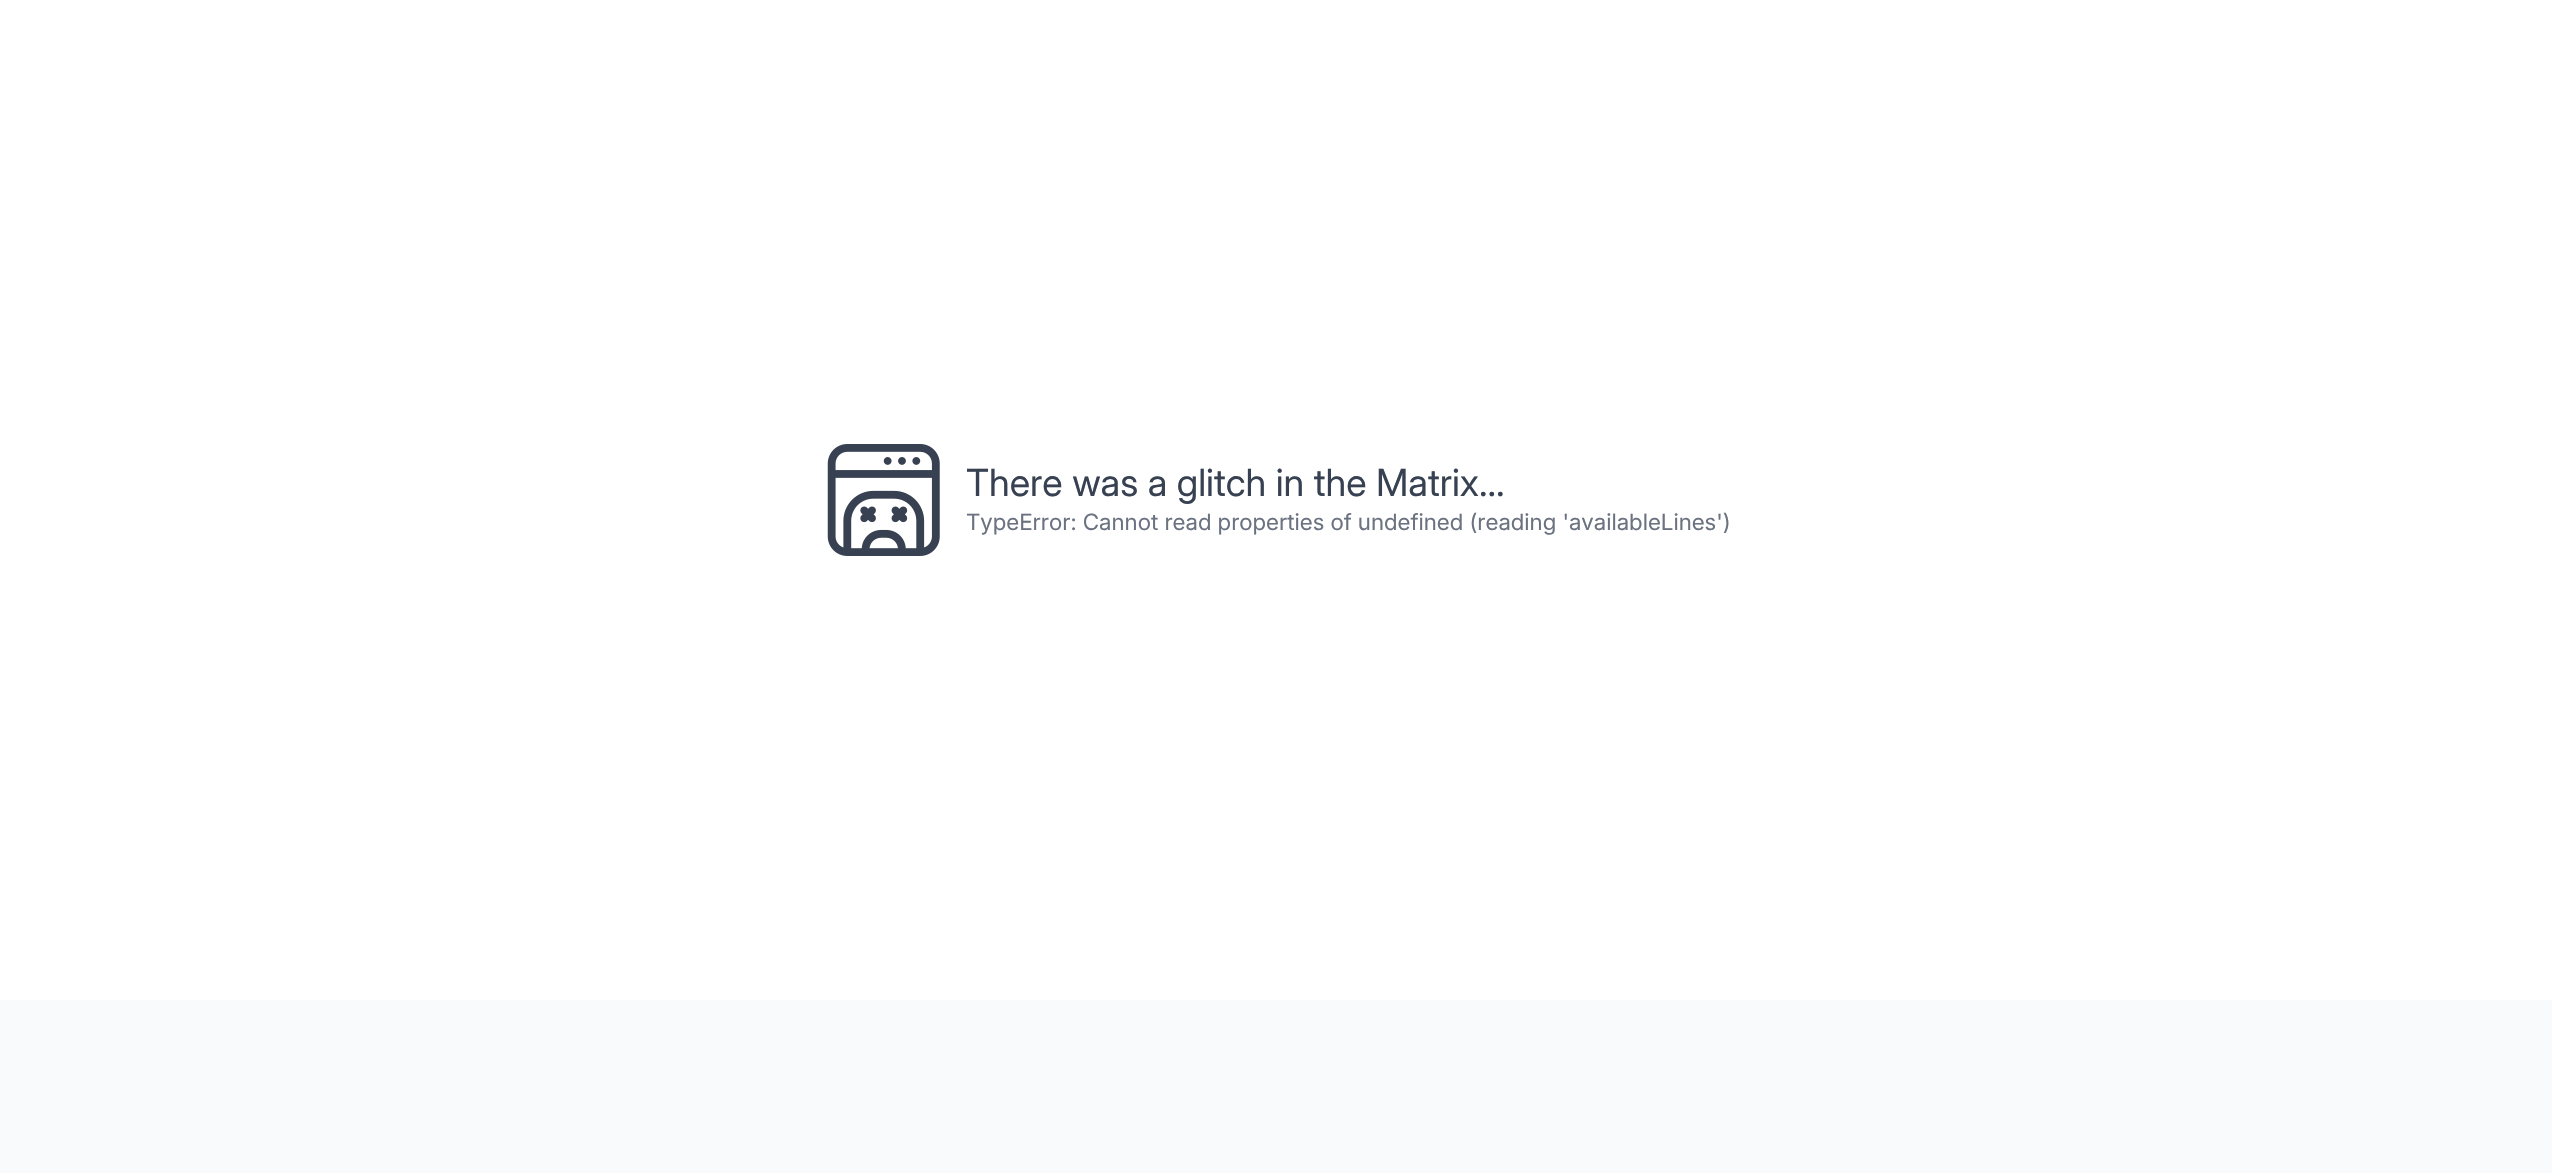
void draw(SkCanvas* c) {
SkPaint p;
p.setAntiAlias(true);
auto F=[&](const char* family, int weight, float size, bool italic = false){SkFontStyle style(weight, SkFontStyle::kNormal_Width,italic ? SkFontStyle::kItalic_Slant : SkFontStyle::kUpright_Slant);SkFont result(fontMgr->matchFamilyStyle(family, style), size);result.setSubpixel(true);return result;};
auto T=[&](const char* s, float x, float y, const SkFont& font){c->drawString(s, x, y, font, p);};
auto R=[&](float x, float y, float w, float h){c->drawRect(SkRect::MakeXYWH(x, y, w, h), p);};
auto I=[&](const char* path, float x, float y, float w, float h){auto image = SkImages::DeferredFromEncodedData(SkData::MakeFromFileName(path));c->drawImageRect(image, SkRect::MakeXYWH(x, y, w, h), SkSamplingOptions());};
c->clear(0xfff9fafb);
p.setColor(0xffffffff);
R(0,0,2552,1000);
I("1.png",827,444,113,112);
auto f1 = F("Inter",400,37.5);
p.setColor(0xff374151);
T("There was a glitch in the Matrix…",966,496,f1);
auto f2 = F("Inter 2",400,22.5);
p.setColor(0xff6b7280);
T("TypeError: Cannot read properties of undefined (reading 'availableLines')",966,530,f2);
}
